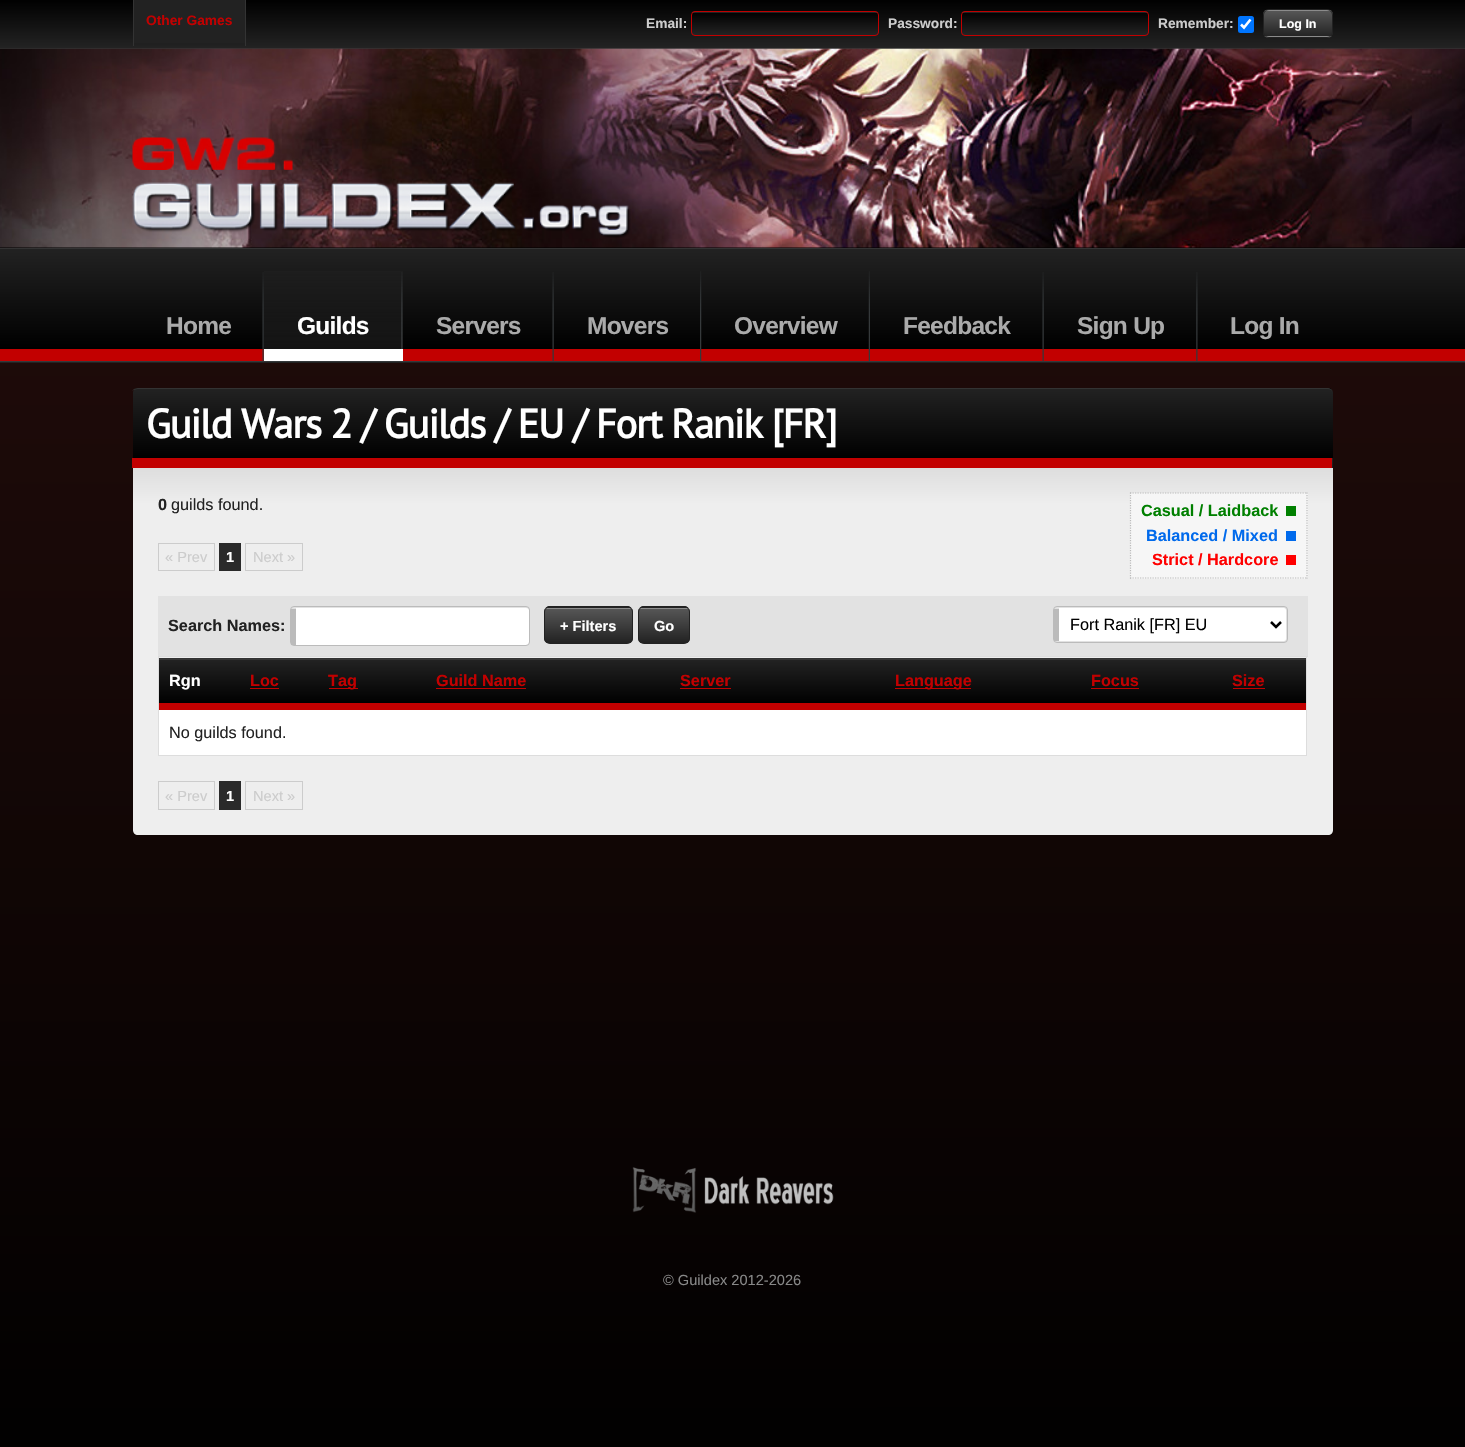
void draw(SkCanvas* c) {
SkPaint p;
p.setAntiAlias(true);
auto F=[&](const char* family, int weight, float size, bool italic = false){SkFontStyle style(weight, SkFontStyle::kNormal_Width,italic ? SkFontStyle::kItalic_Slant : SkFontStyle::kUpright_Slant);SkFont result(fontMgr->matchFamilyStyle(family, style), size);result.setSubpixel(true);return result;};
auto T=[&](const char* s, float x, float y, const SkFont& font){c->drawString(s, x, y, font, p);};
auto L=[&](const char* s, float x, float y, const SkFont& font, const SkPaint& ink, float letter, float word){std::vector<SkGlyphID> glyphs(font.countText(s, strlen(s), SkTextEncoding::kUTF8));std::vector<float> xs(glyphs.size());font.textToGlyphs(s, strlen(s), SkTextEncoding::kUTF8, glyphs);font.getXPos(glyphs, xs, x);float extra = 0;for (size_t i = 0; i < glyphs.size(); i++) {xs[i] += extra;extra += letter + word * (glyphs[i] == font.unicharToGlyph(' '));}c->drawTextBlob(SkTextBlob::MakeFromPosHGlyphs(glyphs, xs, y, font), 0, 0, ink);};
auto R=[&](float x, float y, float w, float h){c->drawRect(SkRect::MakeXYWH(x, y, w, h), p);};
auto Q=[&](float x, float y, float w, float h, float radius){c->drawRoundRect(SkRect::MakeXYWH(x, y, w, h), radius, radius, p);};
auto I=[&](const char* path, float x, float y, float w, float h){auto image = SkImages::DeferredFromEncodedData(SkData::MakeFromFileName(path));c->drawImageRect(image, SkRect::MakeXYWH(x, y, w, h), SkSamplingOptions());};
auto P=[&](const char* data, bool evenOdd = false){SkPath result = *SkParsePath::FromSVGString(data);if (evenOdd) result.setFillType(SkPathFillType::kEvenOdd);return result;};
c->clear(0xffffffff);
{
const SkColor colors[] = {0xff270e0c,0xff000000};
const float stops[] = {0,.94};
const SkPoint ends[] = {{732,0}, {733,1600}};
p.setShader(SkGradientShader::MakeLinear(ends, colors, stops, 2, SkTileMode::kClamp));
p.setAlpha(255);
}
R(0,363,1465,1084);
{
const SkColor colors[] = {0xff232323,0xff000000};
const float stops[] = {0,1};
const SkPoint ends[] = {{733,48}, {733,-.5}};
p.setShader(SkGradientShader::MakeLinear(ends, colors, stops, 2, SkTileMode::kClamp));
p.setAlpha(255);
}
R(0,0,1465,48);
p.setShader(nullptr);
p.setColor(0xff333333);
R(0,48,1465,1);
p.setColor(0xff222222);
R(134,0,111,43);
p.setColor(0xff333333);
R(245,0,1,46);
R(133,0,1,46);
auto f1 = F("Liberation Sans",700,13.75);
p.setColor(0xffc20000);
T("Other Games",146,25,f1);
p.setColor(0xffcccccc);
T("Email:",646,28,f1);
c->save();
c->clipPath(P("M695 11h180c2 0 4 2 4 4v17c0 2-2 4-4 4h-180c-2 0-4-2-4-4v-17c0-2 2-4 4-4z"),true);
{
const SkColor colors[] = {0xff232323,0xff000000};
const float stops[] = {0,1};
const SkPoint ends[] = {{785,13}, {785,-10}};
p.setShader(SkGradientShader::MakeLinear(ends, colors, stops, 2, SkTileMode::kClamp));
p.setAlpha(255);
}
R(691,11,188,2);
{
const SkColor colors[] = {0xff232323,0xff000000};
const float stops[] = {0,1};
const SkPoint ends[] = {{785,35}, {785,12}};
p.setShader(SkGradientShader::MakeLinear(ends, colors, stops, 2, SkTileMode::kClamp));
p.setAlpha(255);
}
R(691,13,188,22);
c->restore();
p.setStroke(true);
p.setStrokeWidth(1);
p.setShader(nullptr);
p.setColor(0xffc20000);
c->drawRoundRect(SkRect::MakeXYWH(691.5,11.5,187,24),3.5,3.5,p);
p.setStroke(false);
p.setColor(0xffcccccc);
T("Password:",888,28,f1);
c->save();
c->clipPath(P("M965 11h180c2 0 4 2 4 4v17c0 2-2 4-4 4h-180c-2 0-4-2-4-4v-17c0-2 2-4 4-4z"),true);
{
const SkColor colors[] = {0xff232323,0xff000000};
const float stops[] = {0,1};
const SkPoint ends[] = {{1055,13}, {1055,-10}};
p.setShader(SkGradientShader::MakeLinear(ends, colors, stops, 2, SkTileMode::kClamp));
p.setAlpha(255);
}
R(961,11,188,2);
{
const SkColor colors[] = {0xff232323,0xff000000};
const float stops[] = {0,1};
const SkPoint ends[] = {{1055,35}, {1055,12}};
p.setShader(SkGradientShader::MakeLinear(ends, colors, stops, 2, SkTileMode::kClamp));
p.setAlpha(255);
}
R(961,13,188,22);
c->restore();
p.setStroke(true);
p.setShader(nullptr);
p.setColor(0xffc20000);
c->drawRoundRect(SkRect::MakeXYWH(961.5,11.5,187,24),3.5,3.5,p);
p.setStroke(false);
p.setColor(0xffcccccc);
T("Remember:",1158,28,f1);
p.setColor(0xff0075ff);
Q(1238,16,16,17,2.5);
p.setStroke(true);
p.setStrokeWidth(2.6);
p.setColor(0xffffffff);
c->drawPath(P("M1241 24.5l3 3l6.5-8"),p);
c->save();
c->clipPath(P("M1269 9h58c3.5 0 6 2.5 6 6v17c0 3.5-2.5 6-6 6h-58c-3.5 0-6-2.5-6-6v-17c0-3.5 2.5-6 6-6z"),true);
p.setStroke(false);
{
const SkColor colors[] = {0xffaaaaaa,0xff555555,0xff222222};
const float stops[] = {0,.05,1};
const SkPoint ends[] = {{1298,10}, {1298,37}};
p.setShader(SkGradientShader::MakeLinear(ends, colors, stops, 3, SkTileMode::kClamp));
p.setAlpha(255);
}
R(1263,10,70,26);
{
const SkColor colors[] = {0xffaaaaaa,0xff555555,0xff222222};
const float stops[] = {0,.05,1};
const SkPoint ends[] = {{1298,36}, {1298,63}};
p.setShader(SkGradientShader::MakeLinear(ends, colors, stops, 3, SkTileMode::kClamp));
p.setAlpha(255);
}
R(1263,36,70,2);
c->restore();
p.setStroke(true);
p.setStrokeWidth(1);
p.setShader(nullptr);
p.setColor(0xff222222);
c->drawRoundRect(SkRect::MakeXYWH(1263.5,9.5,69,28),5.5,5.5,p);
auto f2 = F("Liberation Sans",700,12.5);
p.setStroke(false);
p.setColor(0xffffffff);
T("Log In",1279,28,f2);
p.setColor(0xff000000);
R(0,247,1465,1);
I("1.png",0,48,1465,200);
I("2.png",132,137,161,33);
I("3.png",132,182,499,56);
p.setColor(0xff222222);
R(0,362,1465,1);
{
const SkColor colors[] = {0xffc20000,0xffc20000,0xff000000,0xff222222};
const float stops[] = {0,.11,.11,1};
const SkPoint ends[] = {{733,361}, {733,249}};
p.setShader(SkGradientShader::MakeLinear(ends, colors, stops, 4, SkTileMode::kClamp));
p.setAlpha(255);
}
R(0,249,1465,112);
p.setShader(nullptr);
p.setColor(0xff333333);
R(0,248,1465,1);
p.setColor(0xff35393b);
R(0,361,1465,1);
I("4.png",262,272,2,89);
auto f3 = F("Liberation Sans",700,24.5);
p.setColor(0xffaaaaaa);
L("Home",166,334,f3,p,-.75,0);
I("5.png",401,272,2,77);
{
const SkColor colors[] = {0xffffffff,0xffffffff,0x4d414141,0x00414141};
const float stops[] = {0,.11,.11,1};
const SkPoint ends[] = {{333,361}, {333,248}};
p.setShader(SkGradientShader::MakeLinear(ends, colors, stops, 4, SkTileMode::kClamp));
p.setAlpha(255);
}
R(264,271,139,90);
p.setShader(nullptr);
p.setColor(0xffffffff);
L("Guilds",297,334,f3,p,-.75,0);
I("4.png",552,272,2,89);
p.setColor(0xffaaaaaa);
L("Servers",436,334,f3,p,-.75,0);
I("6.png",700,271,2,90);
L("Movers",587,334,f3,p,-.75,0);
I("7.png",868,271,2,90);
L("Overview",734,334,f3,p,-.75,0);
I("4.png",1042,272,2,89);
L("Feedback",903,334,f3,p,-.75,0);
I("8.png",1196,272,2,89);
L("Sign Up",1077,334,f3,p,-.75,0);
L("Log In",1230,334,f3,p,-.75,0);
c->save();
c->clipPath(P("M138 388h1190c3 0 5 2 5 5v75h-1200v-75c0-3 2-5 5-5z"),true);
{
const SkColor colors[] = {0xff222222,0xff000000};
const float stops[] = {0,1};
const SkPoint ends[] = {{733,320}, {733,389}};
p.setShader(SkGradientShader::MakeLinear(ends, colors, stops, 2, SkTileMode::kClamp));
p.setAlpha(255);
}
R(133,388,1200,1);
{
const SkColor colors[] = {0xff222222,0xff000000};
const float stops[] = {0,1};
const SkPoint ends[] = {{733,389}, {733,458}};
p.setShader(SkGradientShader::MakeLinear(ends, colors, stops, 2, SkTileMode::kClamp));
p.setAlpha(255);
}
R(133,389,1200,69);
c->restore();
{
const SkColor colors[] = {0xff222222,0xff000000};
const float stops[] = {0,1};
const SkPoint ends[] = {{733,457}, {733,527}};
p.setShader(SkGradientShader::MakeLinear(ends, colors, stops, 2, SkTileMode::kClamp));
p.setAlpha(255);
}
R(1332,458,1,10);
p.setShader(nullptr);
p.setColor(0xff333333);
c->drawPath(P("M138 388h1190c2 0 4 2 4 4c0-2-2-3-4-3h-1190c-2 0-5 1-6 2c1-2 4-3 6-3z"),p);
p.setColor(0xffc20000);
R(132,458,1200,10);
auto f4 = F("PT Sans",700,40.6);
p.setColor(0xffffffff);
L("Guild Wars 2 / Guilds / EU / Fort Ranik [FR]",146,438,f4,p,-1.2,0);
{
const SkColor colors[] = {0xffdddddd,0xffeeeeee};
const float stops[] = {0,.1};
const SkPoint ends[] = {{733,467}, {733,835}};
p.setShader(SkGradientShader::MakeLinear(ends, colors, stops, 2, SkTileMode::kClamp));
p.setAlpha(255);
}
c->drawPath(P("M133 468h1200v362c0 3-2 5-5 5h-1190c-3 0-5-2-5-5z"),p);
auto f5 = F("Liberation Sans",700,16.25);
p.setShader(nullptr);
p.setColor(0xff222222);
T("0",158,510,f5);
auto f6 = F("Liberation Sans",400,16.25);
T("guilds found.",171,510,f6);
p.setColor(0xfff6f6f6);
R(1130,493,178,86);
p.setStroke(true);
p.setStrokeWidth(1.2);
p.setColor(0xffbbbbbb);
p.setPathEffect(SkDashPathEffect::Make({{1.25f,1.25f}}, 0));
c->drawPath(P("M1130 493h177.5"),p);
p.setPathEffect(nullptr);
p.setPathEffect(SkDashPathEffect::Make({{1.25f,1.25f}}, 0));
c->drawPath(P("M1307 492.5v86.5"),p);
p.setPathEffect(nullptr);
p.setPathEffect(SkDashPathEffect::Make({{1.25f,1.25f}}, 0));
c->drawPath(P("M1130 578h177.5"),p);
p.setPathEffect(nullptr);
p.setPathEffect(SkDashPathEffect::Make({{1.25f,1.25f}}, 0));
c->drawPath(P("M1130.5 492.5v86.5"),p);
p.setPathEffect(nullptr);
p.setStroke(false);
p.setColor(0xff008000);
T("Casual / Laidback",1141,516,f5);
R(1286,506,10,10);
p.setColor(0xff006aec);
T("Balanced / Mixed",1146,541,f5);
R(1286,531,10,10);
p.setColor(0xffff0000);
T("Strict / Hardcore",1152,565,f5);
R(1286,555,10,10);
p.setStroke(true);
p.setStrokeWidth(1);
p.setColor(0xffcccccc);
c->drawRect(SkRect::MakeXYWH(158.5,543.5,56,27),p);
auto f7 = F("Liberation Sans",400,14.6);
p.setStroke(false);
T("« Prev",165,562,f7);
p.setColor(0xff2a2a2a);
R(219,543,22,28);
auto f8 = F("Liberation Sans",700,14.6);
p.setColor(0xffffffff);
T("1",226,562,f8);
p.setStroke(true);
p.setColor(0xffcccccc);
c->drawRect(SkRect::MakeXYWH(245.5,543.5,57,27),p);
p.setStroke(false);
T("Next »",253,562,f7);
p.setColor(0xffe2e2e2);
R(158,596,1150,60);
p.setColor(0xff222222);
T("Search Names:",168,631,f5);
p.setColor(0xffffffff);
c->drawPath(P("M296 608h230c2 0 3 1 3 2v32c0 2-1 3-3 3h-230z"),p);
p.setStroke(true);
p.setColor(0xffbbbbbb);
c->drawRoundRect(SkRect::MakeXYWH(290.5,606.5,239,39),3.5,3.5,p);
p.setStroke(false);
R(291,609,5,36);
c->save();
c->clipPath(P("M550 606h77c3.5 0 6 2.5 6 6v26c0 3.5-2.5 6-6 6h-77c-3.5 0-6-2.5-6-6v-26c0-3.5 2.5-6 6-6z"),true);
{
const SkColor colors[] = {0xffaaaaaa,0xff555555,0xff222222};
const float stops[] = {0,.04,1};
const SkPoint ends[] = {{588,573}, {588,608}};
p.setShader(SkGradientShader::MakeLinear(ends, colors, stops, 3, SkTileMode::kClamp));
p.setAlpha(255);
}
R(544,606,89,2);
{
const SkColor colors[] = {0xffaaaaaa,0xff555555,0xff222222};
const float stops[] = {0,.04,1};
const SkPoint ends[] = {{588,608}, {588,643}};
p.setShader(SkGradientShader::MakeLinear(ends, colors, stops, 3, SkTileMode::kClamp));
p.setAlpha(255);
}
R(544,608,89,35);
c->restore();
p.setStroke(true);
p.setShader(nullptr);
p.setColor(0xff222222);
c->drawRoundRect(SkRect::MakeXYWH(544.5,606.5,88,37),5.5,5.5,p);
p.setStroke(false);
p.setColor(0xffffffff);
T("+ Filters",560,631,f8);
c->save();
c->clipPath(P("M644 606h40c3.5 0 6 2.5 6 6v26c0 3.5-2.5 6-6 6h-40c-3.5 0-6-2.5-6-6v-26c0-3.5 2.5-6 6-6z"),true);
{
const SkColor colors[] = {0xffaaaaaa,0xff555555,0xff222222};
const float stops[] = {0,.04,1};
const SkPoint ends[] = {{664,573}, {664,608}};
p.setShader(SkGradientShader::MakeLinear(ends, colors, stops, 3, SkTileMode::kClamp));
p.setAlpha(255);
}
R(638,606,52,2);
{
const SkColor colors[] = {0xffaaaaaa,0xff555555,0xff222222};
const float stops[] = {0,.04,1};
const SkPoint ends[] = {{664,608}, {664,643}};
p.setShader(SkGradientShader::MakeLinear(ends, colors, stops, 3, SkTileMode::kClamp));
p.setAlpha(255);
}
R(638,608,52,35);
c->restore();
p.setStroke(true);
p.setShader(nullptr);
p.setColor(0xff222222);
c->drawRoundRect(SkRect::MakeXYWH(638.5,606.5,51,37),5.5,5.5,p);
p.setStroke(false);
p.setColor(0xffffffff);
T("Go",654,631,f8);
c->drawPath(P("M1059 608h225c1 0 2 1 2 2v29c0 1-1 2-2 2h-225z"),p);
p.setStroke(true);
p.setColor(0xffbbbbbb);
c->drawRoundRect(SkRect::MakeXYWH(1053.5,606.5,234,36),3.5,3.5,p);
p.setStroke(false);
R(1054,609,5,32);
p.setStroke(true);
p.setStrokeWidth(2.5);
p.setColor(0xff000000);
c->drawPath(P("M1271 622l5 5l5-5"),p);
p.setStroke(false);
T("Fort Ranik [FR] EU",1070,630,f6);
p.setColor(0xffdddddd);
R(158,656,1150,1);
R(1306,656,1,100);
R(158,656,1,100);
{
const SkColor colors[] = {0xff444444,0xff222222,0xff000000};
const float stops[] = {0,.03,1};
const SkPoint ends[] = {{184,659}, {184,703}};
p.setShader(SkGradientShader::MakeLinear(ends, colors, stops, 3, SkTileMode::kClamp));
p.setAlpha(255);
}
R(159,659,51,44);
p.setShader(nullptr);
p.setColor(0xff333333);
R(159,658,1147,1);
p.setColor(0xffc20000);
R(159,703,1147,7);
p.setColor(0xffffffff);
T("Rgn",169,686,f5);
{
const SkColor colors[] = {0xff444444,0xff222222,0xff000000};
const float stops[] = {0,.03,1};
const SkPoint ends[] = {{264,659}, {264,703}};
p.setShader(SkGradientShader::MakeLinear(ends, colors, stops, 3, SkTileMode::kClamp));
p.setAlpha(255);
}
R(210,659,109,44);
p.setShader(nullptr);
p.setColor(0xffc20000);
T("Loc",250,686,f5);
R(250,688,29,1);
{
const SkColor colors[] = {0xff444444,0xff222222,0xff000000};
const float stops[] = {0,.03,1};
const SkPoint ends[] = {{373,659}, {373,703}};
p.setShader(SkGradientShader::MakeLinear(ends, colors, stops, 3, SkTileMode::kClamp));
p.setAlpha(255);
}
R(319,659,107,44);
p.setShader(nullptr);
p.setColor(0xffc20000);
R(329,688,29,1);
T("Tag",328,686,f5);
{
const SkColor colors[] = {0xff444444,0xff222222,0xff000000};
const float stops[] = {0,.03,1};
const SkPoint ends[] = {{548,659}, {548,703}};
p.setShader(SkGradientShader::MakeLinear(ends, colors, stops, 3, SkTileMode::kClamp));
p.setAlpha(255);
}
R(426,659,244,44);
p.setShader(nullptr);
p.setColor(0xffc20000);
T("Guild Name",436,686,f5);
R(436,688,90,1);
{
const SkColor colors[] = {0xff444444,0xff222222,0xff000000};
const float stops[] = {0,.03,1};
const SkPoint ends[] = {{748,659}, {748,703}};
p.setShader(SkGradientShader::MakeLinear(ends, colors, stops, 3, SkTileMode::kClamp));
p.setAlpha(255);
}
R(670,659,156,44);
p.setShader(nullptr);
p.setColor(0xffc20000);
T("Server",680,686,f5);
R(680,688,51,1);
{
const SkColor colors[] = {0xff444444,0xff222222,0xff000000};
const float stops[] = {0,.03,1};
const SkPoint ends[] = {{933,659}, {933,703}};
p.setShader(SkGradientShader::MakeLinear(ends, colors, stops, 3, SkTileMode::kClamp));
p.setAlpha(255);
}
R(826,659,214,44);
p.setShader(nullptr);
p.setColor(0xffc20000);
R(895,688,76,1);
T("Language",895,686,f5);
{
const SkColor colors[] = {0xff444444,0xff222222,0xff000000};
const float stops[] = {0,.03,1};
const SkPoint ends[] = {{1115,659}, {1115,703}};
p.setShader(SkGradientShader::MakeLinear(ends, colors, stops, 3, SkTileMode::kClamp));
p.setAlpha(255);
}
R(1040,659,150,44);
p.setShader(nullptr);
p.setColor(0xffc20000);
T("Focus",1091,686,f5);
R(1091,688,48,1);
{
const SkColor colors[] = {0xff444444,0xff222222,0xff000000};
const float stops[] = {0,.03,1};
const SkPoint ends[] = {{1248,659}, {1248,703}};
p.setShader(SkGradientShader::MakeLinear(ends, colors, stops, 3, SkTileMode::kClamp));
p.setAlpha(255);
}
R(1190,659,116,44);
p.setShader(nullptr);
p.setColor(0xffc20000);
T("Size",1232,686,f5);
R(1233,688,32,1);
p.setColor(0xffffffff);
R(159,710,1147,45);
p.setColor(0xffdddddd);
R(159,755,1147,1);
p.setColor(0xff222222);
T("No guilds found.",169,738,f6);
p.setStroke(true);
p.setStrokeWidth(1);
p.setColor(0xffcccccc);
c->drawRect(SkRect::MakeXYWH(158.5,781.5,56,28),p);
p.setStroke(false);
T("« Prev",165,801,f7);
p.setColor(0xff2a2a2a);
R(219,781,22,29);
p.setColor(0xffffffff);
T("1",226,801,f8);
p.setStroke(true);
p.setColor(0xffcccccc);
c->drawRect(SkRect::MakeXYWH(245.5,781.5,57,28),p);
p.setStroke(false);
T("Next »",253,801,f7);
I("9.png",632,1167,202,46);
p.setColor(0xff888888);
T("© Guildex 2012-2026",663,1285,f7);
}
